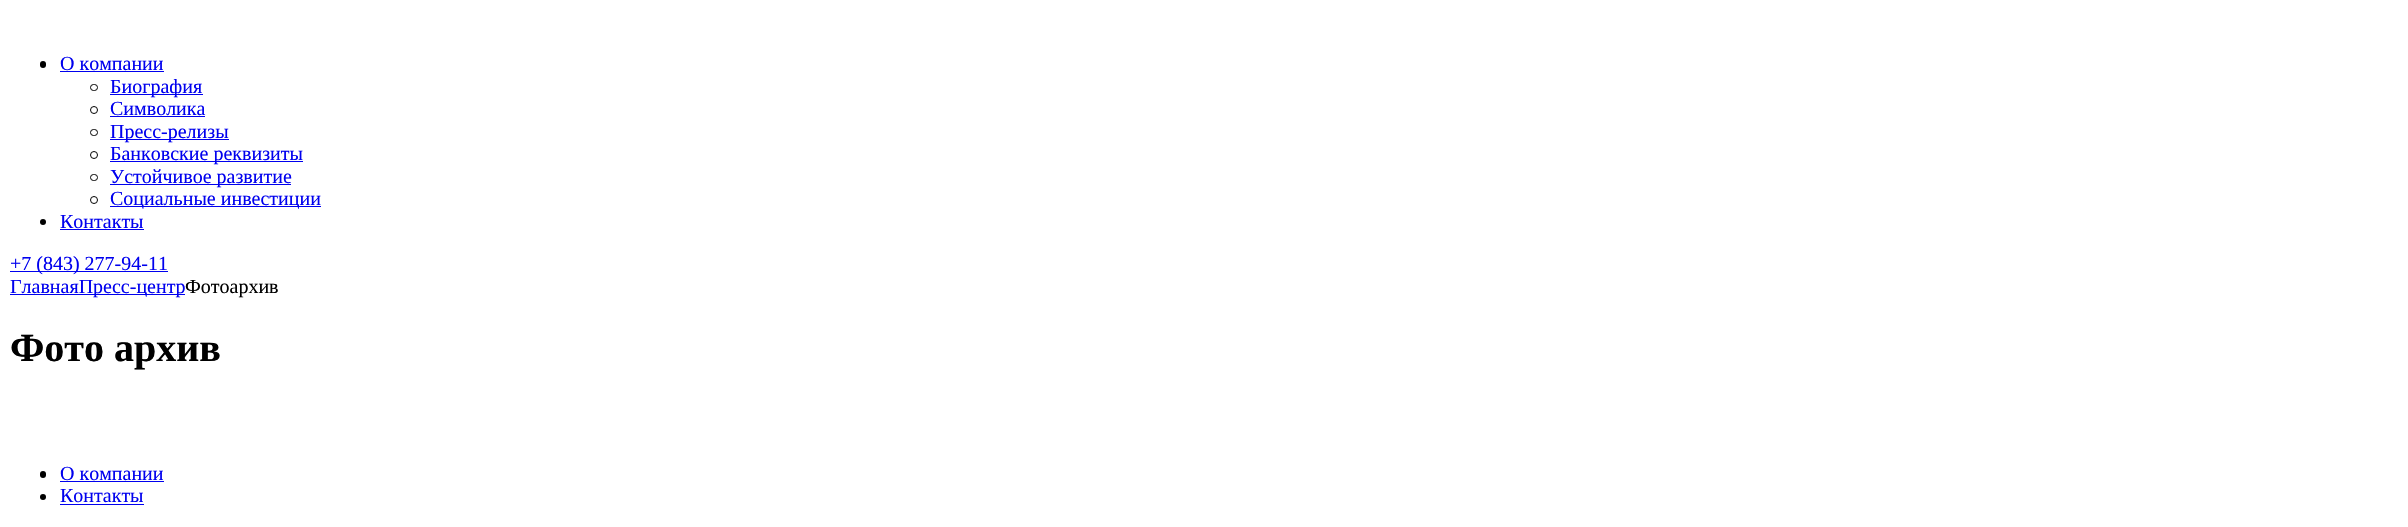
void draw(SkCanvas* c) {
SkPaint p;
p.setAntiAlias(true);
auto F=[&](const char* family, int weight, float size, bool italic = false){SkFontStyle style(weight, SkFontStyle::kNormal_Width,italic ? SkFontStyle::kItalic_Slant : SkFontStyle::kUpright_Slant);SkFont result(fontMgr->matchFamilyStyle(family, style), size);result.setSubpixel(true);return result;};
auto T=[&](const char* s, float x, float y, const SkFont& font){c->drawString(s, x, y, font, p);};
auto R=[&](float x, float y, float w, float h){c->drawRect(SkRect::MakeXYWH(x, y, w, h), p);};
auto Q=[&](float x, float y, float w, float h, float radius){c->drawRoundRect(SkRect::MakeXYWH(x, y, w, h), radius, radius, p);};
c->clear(0xffffffff);
p.setColor(0xff000000);
Q(40,61,6,7,3);
auto f1 = F("Liberation Serif",400,20);
p.setColor(0xff0000ee);
T("О компании",60,70,f1);
R(60,71,104,1);
p.setStroke(true);
p.setStrokeWidth(1);
p.setColor(0xff000000);
c->drawRoundRect(SkRect::MakeXYWH(90.5,84.5,7,6),3,3,p);
p.setStroke(false);
p.setColor(0xff0000ee);
R(110,94,93,1);
T("Биография",110,93,f1);
p.setStroke(true);
p.setColor(0xff000000);
c->drawCircle(94,110,3.5,p);
p.setStroke(false);
p.setColor(0xff0000ee);
T("Символика",110,115,f1);
R(110,116,95,1);
p.setStroke(true);
p.setColor(0xff000000);
c->drawRoundRect(SkRect::MakeXYWH(90.5,129.5,7,6),3,3,p);
p.setStroke(false);
p.setColor(0xff0000ee);
R(110,139,119,1);
T("Пресс-релизы",110,138,f1);
p.setStroke(true);
p.setColor(0xff000000);
c->drawCircle(94,155,3.5,p);
p.setStroke(false);
p.setColor(0xff0000ee);
R(110,161,193,1);
T("Банковские реквизиты",110,160,f1);
p.setStroke(true);
p.setColor(0xff000000);
c->drawRoundRect(SkRect::MakeXYWH(90.5,174.5,7,6),3,3,p);
p.setStroke(false);
p.setColor(0xff0000ee);
R(110,184,181,1);
T("Устойчивое развитие",110,183,f1);
p.setStroke(true);
p.setColor(0xff000000);
c->drawCircle(94,200,3.5,p);
p.setStroke(false);
p.setColor(0xff0000ee);
R(110,206,211,1);
T("Социальные инвестиции",110,205,f1);
p.setColor(0xff000000);
c->drawCircle(43,222,3,p);
p.setColor(0xff0000ee);
T("Контакты",60,228,f1);
R(60,229,84,1);
R(10,271,158,1);
T("+7 (843) 277-94-11",10,270,f1);
R(10,294,175,1);
T("ГлавнаяПресс-центр",10,293,f1);
p.setColor(0xff000000);
T("Фотоархив",185,293,f1);
auto f2 = F("Liberation Serif",700,40);
T("Фото архив",10,361,f2);
Q(40,471,6,7,3);
p.setColor(0xff0000ee);
T("О компании",60,480,f1);
R(60,481,104,1);
p.setColor(0xff000000);
c->drawCircle(43,497,3,p);
p.setColor(0xff0000ee);
T("Контакты",60,502,f1);
R(60,504,84,1);
}
